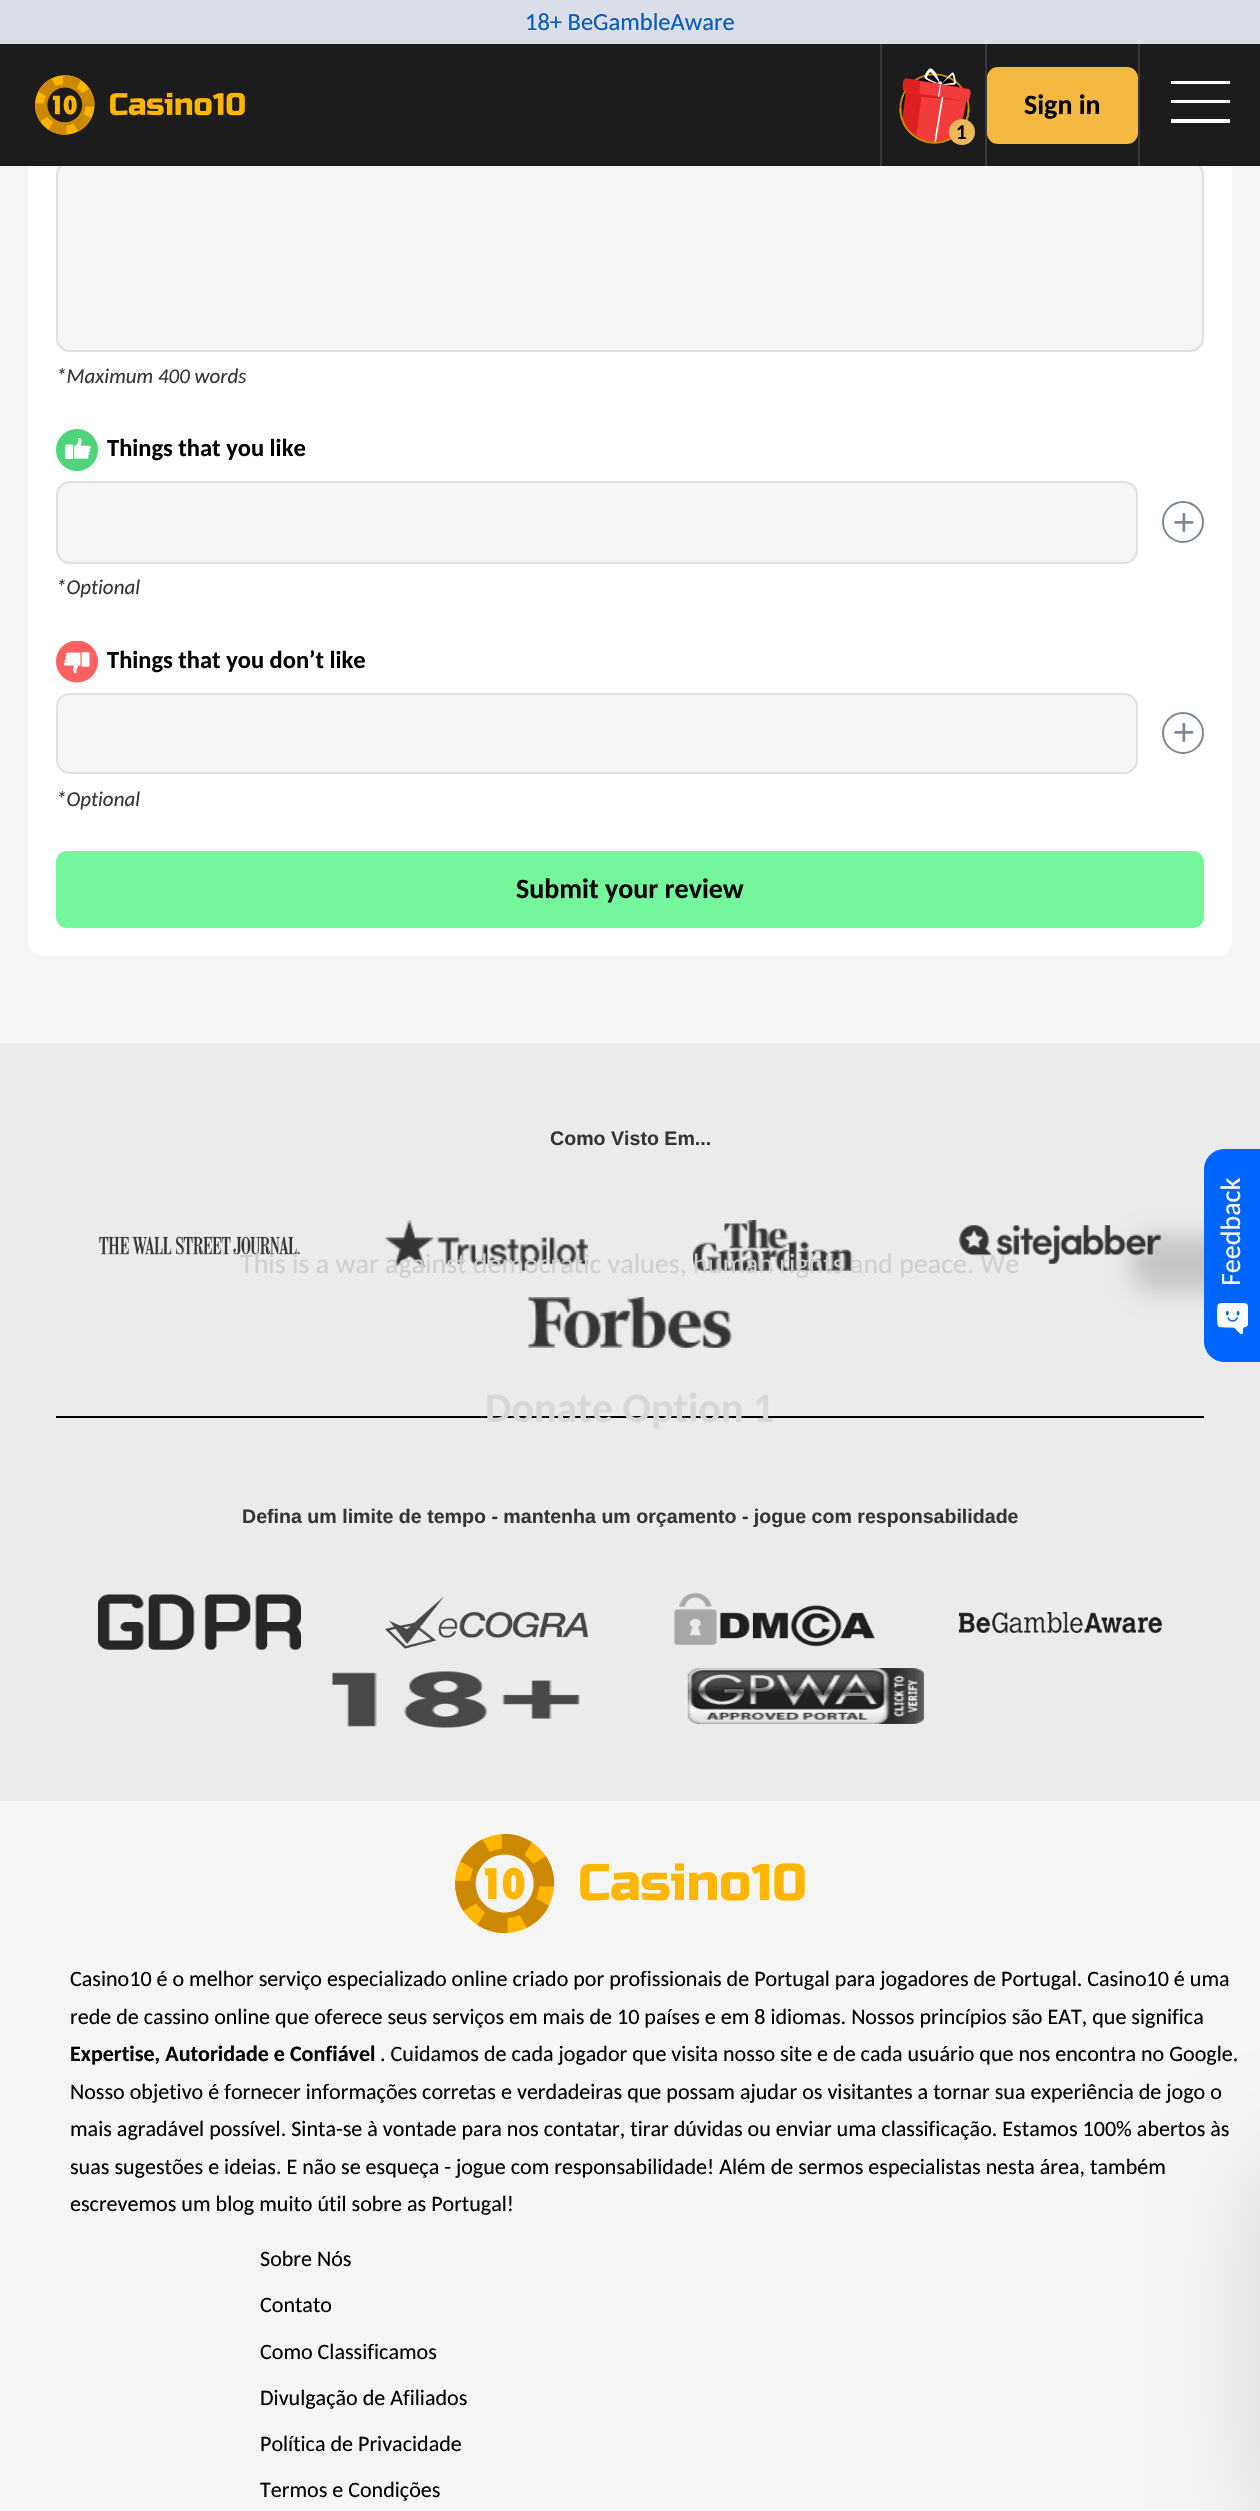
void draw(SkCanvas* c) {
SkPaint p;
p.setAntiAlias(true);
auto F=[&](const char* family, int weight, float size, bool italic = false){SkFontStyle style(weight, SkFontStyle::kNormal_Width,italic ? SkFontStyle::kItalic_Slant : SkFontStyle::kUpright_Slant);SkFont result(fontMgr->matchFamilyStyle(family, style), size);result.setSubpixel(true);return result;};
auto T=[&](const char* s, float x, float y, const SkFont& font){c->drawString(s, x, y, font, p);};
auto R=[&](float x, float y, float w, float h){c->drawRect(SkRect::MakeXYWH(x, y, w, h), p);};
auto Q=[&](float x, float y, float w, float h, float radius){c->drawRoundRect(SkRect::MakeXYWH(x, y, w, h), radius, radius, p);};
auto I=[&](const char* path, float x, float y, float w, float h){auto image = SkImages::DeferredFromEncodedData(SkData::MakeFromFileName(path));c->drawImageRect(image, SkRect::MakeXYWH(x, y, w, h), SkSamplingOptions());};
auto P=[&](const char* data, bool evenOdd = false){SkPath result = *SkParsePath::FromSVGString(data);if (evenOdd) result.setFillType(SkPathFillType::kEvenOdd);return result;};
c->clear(0xfff5f5f5);
p.setColor(0xffffffff);
Q(28,-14,1204,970,14);
p.setColor(0xffdbdee8);
R(0,0,1260,44);
auto f1 = F("Carlito",400,24.5);
p.setColor(0xff005bbb);
T("18+ BeGambleAware",525,30,f1);
p.setColor(0xfff5f5f5);
c->drawRoundRect(SkRect::MakeXYWH(57,162,1146,189),13,13,p);
p.setStroke(true);
p.setStrokeWidth(2);
p.setColor(0xffe0e0e0);
c->drawRoundRect(SkRect::MakeXYWH(57,162,1146,189),13,13,p);
p.setStroke(false);
p.setColor(0xff1c1c1c);
R(0,44,1260,122);
I("1.png",35,75,210,60);
p.setColor(0xff393939);
R(985,44,2,122);
p.setColor(0xfff5b840);
c->drawRoundRect(SkRect::MakeXYWH(988,68,149,75),10,10,p);
p.setStroke(true);
c->drawRoundRect(SkRect::MakeXYWH(988,68,149,75),10,10,p);
auto f2 = F("Carlito",700,28);
p.setStroke(false);
p.setColor(0xff000000);
T("Sign in",1024,114,f2);
p.setColor(0xff393939);
R(1138,44,2,122);
p.setColor(0xffffffff);
R(1171,81,59,3);
R(1171,100,59,3);
R(1171,119,59,4);
p.setColor(0xff393939);
R(880,44,2,122);
I("2.png",899,68,72,76);
p.setColor(0xffedb958);
c->drawCircle(962,132,13,p);
auto f3 = F("Carlito",700,21);
p.setColor(0xff000000);
T("1",956,139,f3);
auto f4 = F("Carlito",400,21,true);
p.setColor(0xff353535);
T("*Maximum 400 words",56,383,f4);
I("3.png",56,429,42,42);
auto f5 = F("Carlito",700,24.5);
p.setColor(0xff000000);
T("Things that you like",107,456,f5);
p.setColor(0xfff5f5f5);
c->drawRoundRect(SkRect::MakeXYWH(57,482,1080,81),13,13,p);
p.setStroke(true);
p.setColor(0xffe0e0e0);
c->drawRoundRect(SkRect::MakeXYWH(57,482,1080,81),13,13,p);
I("4.png",1174,513,20,19);
p.setColor(0xff7c8897);
c->drawCircle(1183,522,20,p);
p.setStroke(false);
p.setColor(0xff353535);
T("*Optional",56,594,f4);
I("5.png",56,641,42,42);
p.setColor(0xff000000);
T("Things that you don’t like",107,668,f5);
p.setColor(0xfff5f5f5);
c->drawRoundRect(SkRect::MakeXYWH(57,694,1080,79),13,13,p);
p.setStroke(true);
p.setColor(0xffe0e0e0);
c->drawRoundRect(SkRect::MakeXYWH(57,694,1080,79),13,13,p);
I("4.png",1174,723,20,19);
p.setColor(0xff7c8897);
c->drawCircle(1183,733,20,p);
p.setStroke(false);
p.setColor(0xff353535);
T("*Optional",56,806,f4);
p.setColor(0xff73f69c);
c->drawRoundRect(SkRect::MakeXYWH(57,852,1146,75),10,10,p);
p.setStroke(true);
c->drawRoundRect(SkRect::MakeXYWH(57,852,1146,75),10,10,p);
p.setStroke(false);
p.setColor(0xff000000);
T("Submit your review",516,898,f2);
p.setColor(0xffebebeb);
R(0,1043,1260,758);
auto f6 = F("Liberation Sans",700,19.6);
p.setColor(0xff353535);
T("Como Visto Em...",550,1145,f6);
p.setColor(0xff000000);
R(56,1416,1148,2);
I("6.png",99,1236,201,19);
I("7.png",385,1220,203,51);
I("8.png",693,1220,161,51);
I("9.png",959,1225,203,39);
I("10.png",528,1297,204,51);
p.setColor(0xff353535);
T("Defina um limite de tempo - mantenha um orçamento - jogue com responsabilidade",242,1523,f6);
I("11.png",98,1594,203,56);
I("12.png",385,1596,203,53);
I("13.png",673,1592,202,55);
I("14.png",959,1612,203,21);
I("15.png",332,1671,248,57);
I("16.png",687,1668,237,56);
I("17.png",455,1834,350,100);
auto f7 = F("Carlito",400,22.05);
p.setColor(0xff000000);
T("Casino10 é o melhor serviço especializado online criado por profissionais de Portugal para jogadores de Portugal. Casino10 é uma",70,1986,f7);
T("rede de cassino online que oferece seus serviços em mais de 10 países e em 8 idiomas. Nossos princípios são EAT, que significa",70,2024,f7);
auto f8 = F("Carlito",700,22.05);
T("Expertise, Autoridade e Confiável",70,2061,f8);
T(". Cuidamos de cada jogador que visita nosso site e de cada usuário que nos encontra no Google.",380,2061,f7);
T("Nosso objetivo é fornecer informações corretas e verdadeiras que possam ajudar os visitantes a tornar sua experiência de jogo o",70,2099,f7);
T("mais agradável possível. Sinta-se à vontade para nos contatar, tirar dúvidas ou enviar uma classificação. Estamos 100% abertos às",70,2136,f7);
T("suas sugestões e ideias. E não se esqueça - jogue com responsabilidade! Além de sermos especialistas nesta área, também",70,2174,f7);
T("escrevemos um blog muito útil sobre as Portugal!",70,2211,f7);
T("Sobre Nós",260,2266,f7);
T("Contato",260,2312,f7);
T("Como Classificamos",260,2359,f7);
T("Divulgação de Afiliados",260,2405,f7);
T("Política de Privacidade",260,2451,f7);
T("Termos e Condições",260,2497,f7);
p.setColor(0x29000000);
p.setMaskFilter(SkMaskFilter::MakeBlur(kNormal_SkBlurStyle, 12));
c->drawRoundRect(SkRect::MakeXYWH(1132,1236,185,56),21,21,p);
p.setMaskFilter(nullptr);
p.setColor(0xff0066ff);
c->drawPath(P("M1204 1341v-171c0-12 9-21 21-21h35v213h-35c-12 0-21-9-21-21z"),p);
auto f9 = F("Carlito",400,28);
p.setColor(0xffffffff);
c->save();
c->rotate(-90,1240,1286);
T("Feedback",1240,1286,f9);
c->restore();
I("18.png",1217,1303,31,31);
p.setColor(0xffd0d0d0);
T("This is a war against democratic values, human rights and peace. We",240,1273,f9);
auto f10 = F("Carlito",700,42);
p.setColor(0xffd8d8d8);
T("Donate Option 1",485,1422,f10);
p.setColor(0x26000000);
p.setMaskFilter(SkMaskFilter::MakeBlur(kNormal_SkBlurStyle, 52.5));
c->drawRoundRect(SkRect::MakeXYWH(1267,2167,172,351),21,21,p);
p.setMaskFilter(nullptr);
}
